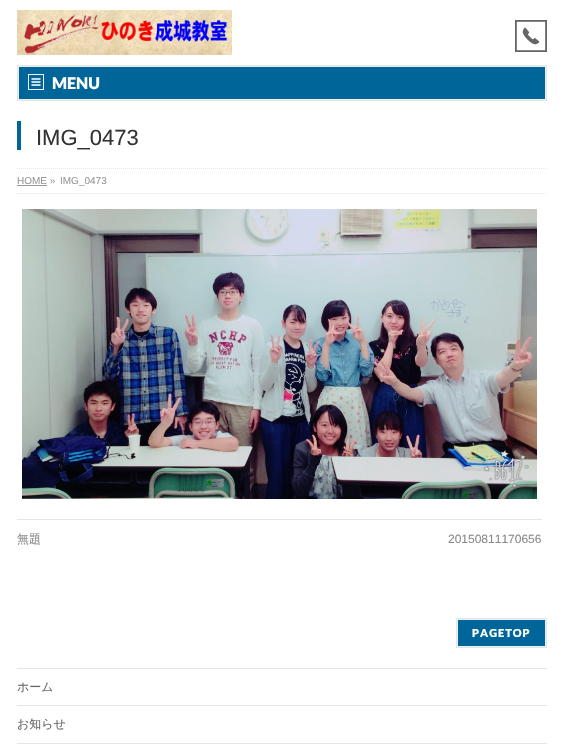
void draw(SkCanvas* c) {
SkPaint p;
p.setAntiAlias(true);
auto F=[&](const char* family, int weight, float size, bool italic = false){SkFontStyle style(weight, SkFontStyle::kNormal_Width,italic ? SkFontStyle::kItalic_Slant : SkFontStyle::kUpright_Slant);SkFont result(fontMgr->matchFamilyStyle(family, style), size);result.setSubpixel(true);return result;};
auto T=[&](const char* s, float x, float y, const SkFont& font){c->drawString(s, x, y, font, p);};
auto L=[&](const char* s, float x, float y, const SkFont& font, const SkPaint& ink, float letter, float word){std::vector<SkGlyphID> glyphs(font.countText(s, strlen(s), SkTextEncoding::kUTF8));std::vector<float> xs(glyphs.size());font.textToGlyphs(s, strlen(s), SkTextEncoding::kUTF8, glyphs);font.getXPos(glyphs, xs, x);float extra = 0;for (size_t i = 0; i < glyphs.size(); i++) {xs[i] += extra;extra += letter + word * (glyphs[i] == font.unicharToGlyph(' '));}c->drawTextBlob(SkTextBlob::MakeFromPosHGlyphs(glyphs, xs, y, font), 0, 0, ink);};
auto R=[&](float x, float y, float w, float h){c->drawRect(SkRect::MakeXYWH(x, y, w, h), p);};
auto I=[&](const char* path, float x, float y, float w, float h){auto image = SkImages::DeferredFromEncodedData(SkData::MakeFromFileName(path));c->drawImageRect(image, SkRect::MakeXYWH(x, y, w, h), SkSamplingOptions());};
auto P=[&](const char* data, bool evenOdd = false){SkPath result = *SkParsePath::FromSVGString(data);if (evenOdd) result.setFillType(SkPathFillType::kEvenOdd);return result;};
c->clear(0xffffffff);
I("1.png",17,10,215,45);
I("2.png",515,20,32,32);
p.setColor(0xff006699);
c->drawRect(SkRect::MakeXYWH(18.5,66.5,527,33),p);
p.setStroke(true);
p.setStrokeWidth(1);
p.setColor(0xffe6f0f5);
c->drawRect(SkRect::MakeXYWH(18.5,66.5,527,33),p);
p.setColor(0xffe5e5e5);
c->drawRect(SkRect::MakeXYWH(17.5,65.5,529,35),p);
I("3.png",28,74,16,16);
auto f1 = F("Lato",900,16);
p.setStroke(false);
p.setColor(0xffffffff);
T("MENU",52,89,f1);
p.setColor(0xff006699);
R(17,121,4,29);
auto f2 = F("Liberation Sans",400,22);
p.setColor(0xff333333);
T("IMG_0473",36,145,f2);
p.setStroke(true);
p.setColor(0xffe5e5e5);
p.setPathEffect(SkDashPathEffect::Make({{1,1}}, 0));
c->drawPath(P("M17 168.5h530"),p);
p.setPathEffect(nullptr);
p.setPathEffect(SkDashPathEffect::Make({{1,1}}, 0));
c->drawPath(P("M17 193.5h530"),p);
p.setPathEffect(nullptr);
auto f3 = F("Liberation Sans",400,10);
p.setStroke(false);
p.setColor(0xff999999);
T("HOME »",17,184,f3);
R(17,185,30,1);
T("IMG_0473",60,184,f3);
I("4.png",22,209,515,290);
p.setColor(0xffe5e5e5);
R(17,519,525,1);
auto f4 = F("WenQuanYi Zen Hei",500,12);
p.setColor(0xff888888);
T("無題",17,543,f4);
auto f5 = F("Liberation Sans",400,12);
T("20150811170656",448,543,f5);
p.setColor(0xff006699);
c->drawRect(SkRect::MakeXYWH(457.5,619.5,88,27),p);
p.setStroke(true);
p.setColor(0xffe6f0f5);
c->drawRect(SkRect::MakeXYWH(457.5,619.5,88,27),p);
p.setColor(0xffe5e5e5);
c->drawRect(SkRect::MakeXYWH(456.5,618.5,90,29),p);
auto f6 = F("Lato",900,11);
p.setStroke(false);
p.setColor(0xffffffff);
L("PAGETOP",472,637,f6,p,1,0);
p.setColor(0xffe5e5e5);
R(17,668,530,1);
R(17,705,530,1);
p.setColor(0xff666666);
T("ホーム",17,691,f4);
p.setColor(0xffe5e5e5);
R(17,743,530,1);
p.setColor(0xff666666);
T("お知らせ",17,728,f4);
}
